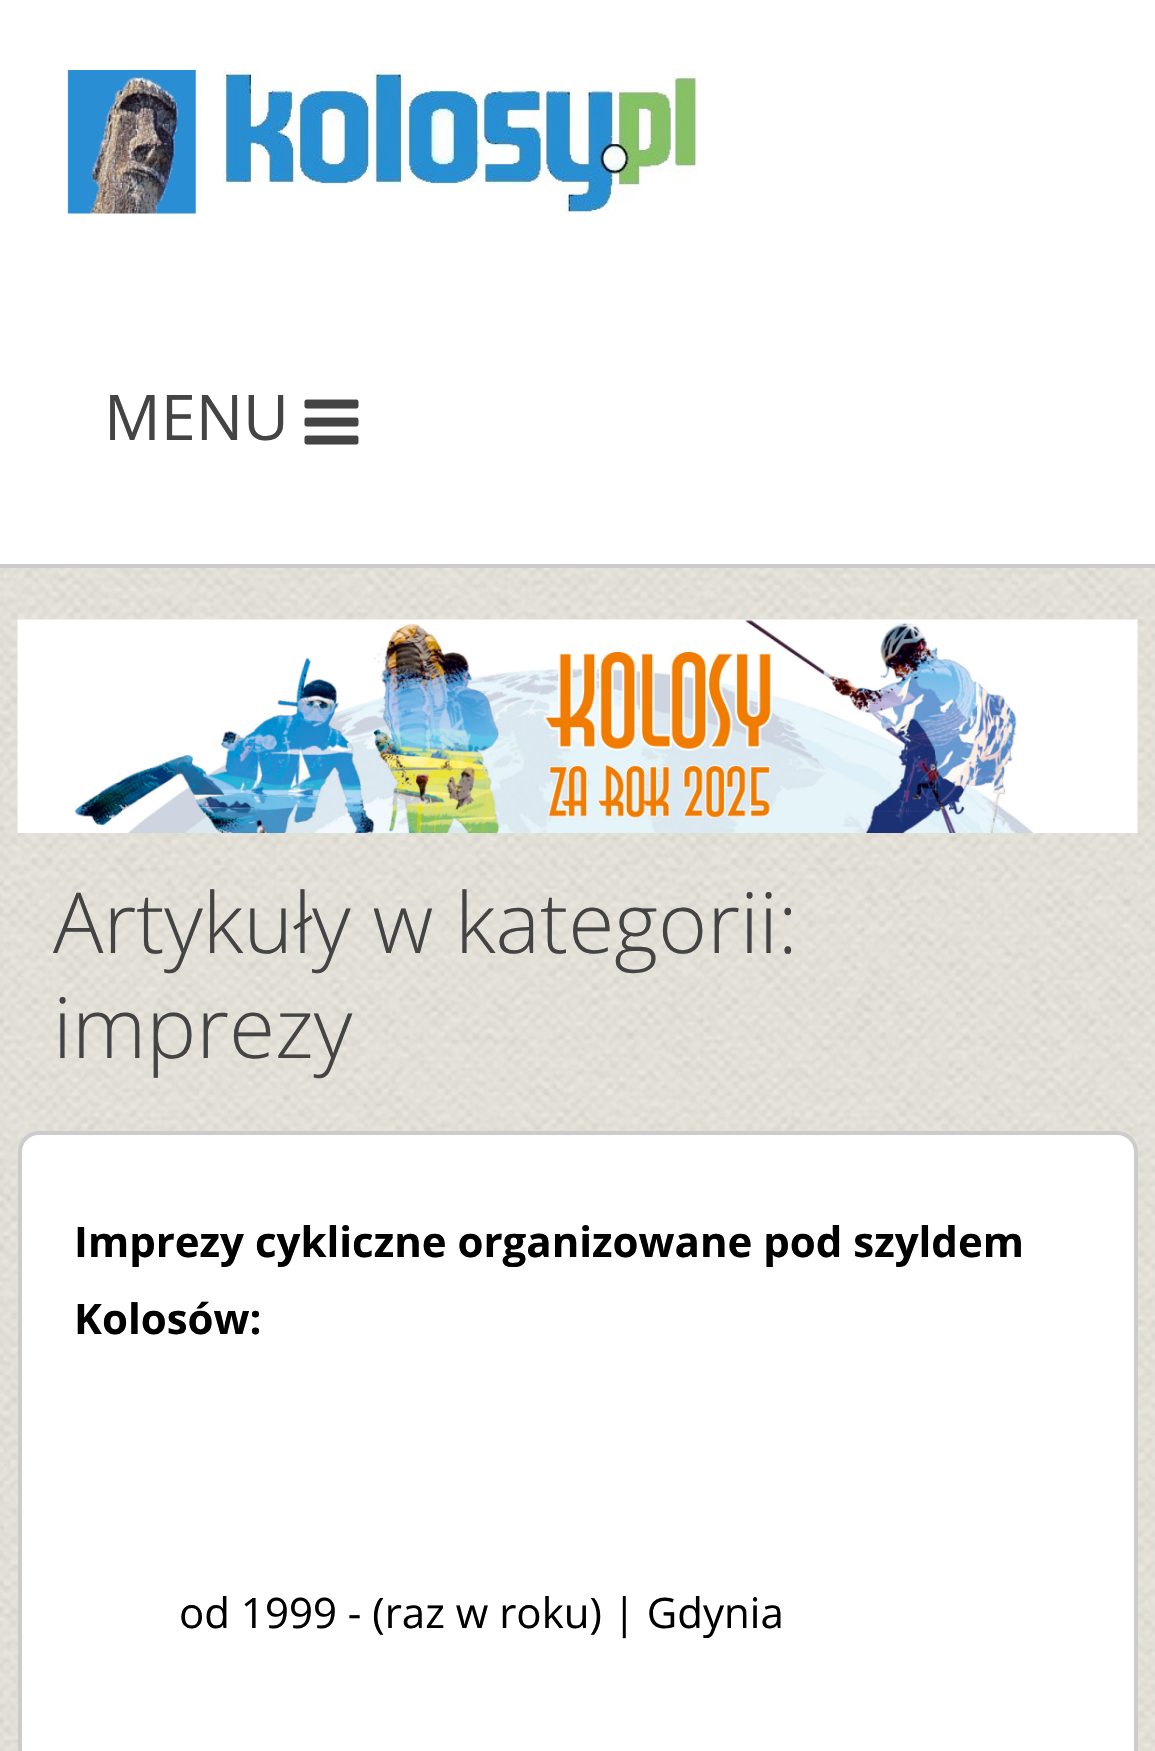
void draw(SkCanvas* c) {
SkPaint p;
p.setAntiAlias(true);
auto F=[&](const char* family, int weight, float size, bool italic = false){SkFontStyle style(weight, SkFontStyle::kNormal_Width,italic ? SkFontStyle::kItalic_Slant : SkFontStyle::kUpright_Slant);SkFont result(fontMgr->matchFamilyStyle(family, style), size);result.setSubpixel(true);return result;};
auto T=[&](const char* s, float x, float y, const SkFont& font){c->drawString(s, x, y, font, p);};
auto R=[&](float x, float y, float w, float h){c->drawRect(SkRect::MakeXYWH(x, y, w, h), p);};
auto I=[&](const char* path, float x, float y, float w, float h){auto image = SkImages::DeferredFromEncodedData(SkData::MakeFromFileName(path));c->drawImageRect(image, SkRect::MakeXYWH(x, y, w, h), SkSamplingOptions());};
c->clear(0xffffffff);
I("1.png",0,568,1155,1183);
p.setColor(0xffcccccc);
R(0,564,1155,4);
I("2.png",67,70,630,144);
auto f1 = F("Open Sans",400,63);
p.setColor(0xff444444);
T("MENU",104,440,f1);
I("3.png",304,399,55,46);
I("4.png",17,619,1121,214);
auto f2 = F("Open Sans",300,84);
T("Artykuły w kategorii:",53,953,f2);
T("imprezy",53,1058,f2);
p.setColor(0xffffffff);
c->drawRoundRect(SkRect::MakeXYWH(20,1133,1116,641),19,19,p);
p.setStroke(true);
p.setStrokeWidth(4);
p.setColor(0xffcccccc);
c->drawRoundRect(SkRect::MakeXYWH(20,1133,1116,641),19,19,p);
auto f3 = F("Open Sans",700,42);
p.setStroke(false);
p.setColor(0xff000000);
T("Imprezy cykliczne organizowane pod szyldem",74,1257,f3);
T("Kolosów:",74,1334,f3);
auto f4 = F("Open Sans",400,42);
T("od 1999 - (raz w roku) | Gdynia",179,1628,f4);
}
